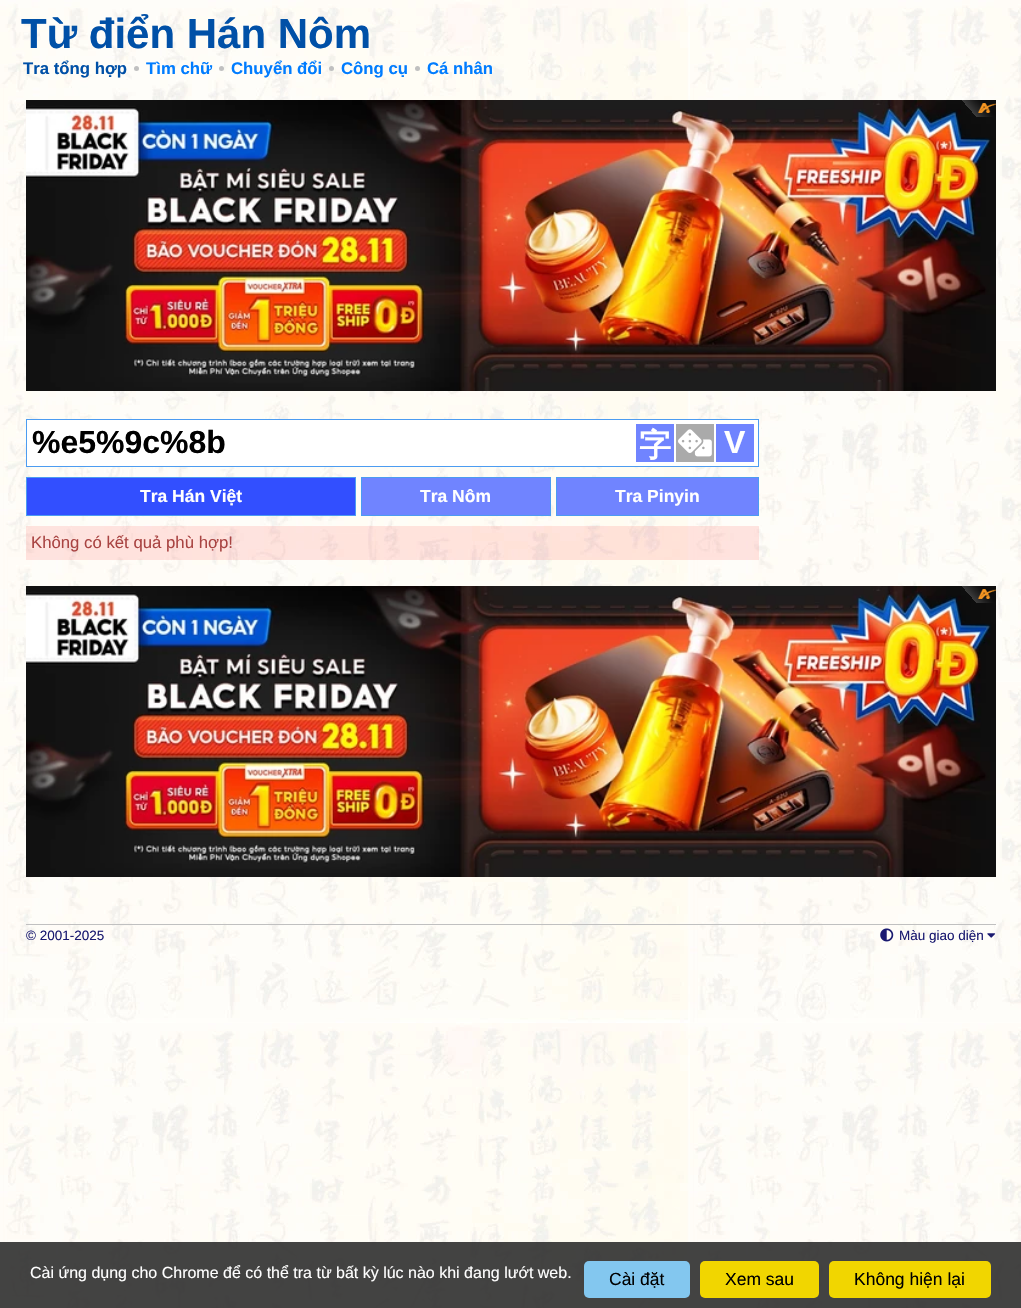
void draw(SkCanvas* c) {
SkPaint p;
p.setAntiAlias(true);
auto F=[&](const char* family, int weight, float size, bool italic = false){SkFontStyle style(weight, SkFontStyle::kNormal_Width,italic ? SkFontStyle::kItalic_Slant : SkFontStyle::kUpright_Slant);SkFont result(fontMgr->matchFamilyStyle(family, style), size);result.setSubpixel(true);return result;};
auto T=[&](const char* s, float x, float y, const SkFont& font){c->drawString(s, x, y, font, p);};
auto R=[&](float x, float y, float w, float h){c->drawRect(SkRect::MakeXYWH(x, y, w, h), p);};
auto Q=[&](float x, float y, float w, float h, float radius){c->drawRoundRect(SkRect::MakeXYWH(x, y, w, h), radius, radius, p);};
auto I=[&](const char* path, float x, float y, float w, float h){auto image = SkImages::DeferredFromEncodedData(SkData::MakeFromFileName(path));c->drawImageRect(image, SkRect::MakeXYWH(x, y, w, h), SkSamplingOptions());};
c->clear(0xffffffff);
I("1.png",0,0,1021,1308);
auto f1 = F("Liberation Sans",700,42);
p.setColor(0xff0050a7);
T("Từ điển Hán Nôm",21,48,f1);
auto f2 = F("Liberation Sans",700,16.75);
T("Tra tổng hợp",23,74,f2);
p.setColor(0xffc0c0c0);
c->drawCircle(136.5,68.5,2.5,p);
p.setColor(0xff007cff);
T("Tìm chữ",146,74,f2);
p.setColor(0xffc0c0c0);
c->drawCircle(221.5,68.5,2.5,p);
p.setColor(0xff007cff);
T("Chuyển đổi",231,74,f2);
p.setColor(0xffc0c0c0);
c->drawCircle(331.5,68.5,2.5,p);
p.setColor(0xff007cff);
T("Công cụ",341,74,f2);
p.setColor(0xffc0c0c0);
c->drawCircle(417.5,68.5,2.5,p);
p.setColor(0xff007cff);
T("Cá nhân",427,74,f2);
I("2.png",26,100,970,291);
I("3.png",962,100,34,17);
p.setColor(0xffffffff);
c->drawRect(SkRect::MakeXYWH(26.5,419.5,732,47),p);
p.setStroke(true);
p.setStrokeWidth(1);
p.setColor(0xff4c9cf1);
c->drawRect(SkRect::MakeXYWH(26.5,419.5,732,47),p);
auto f3 = F("Liberation Sans",700,32);
p.setStroke(false);
p.setColor(0xff000000);
T("%e5%9c%8b",32,453,f3);
p.setColor(0xff7084ff);
R(636,424,38,38);
auto f4 = F("WenQuanYi Zen Hei",700,32);
p.setColor(0xffffffff);
T("字",639,456,f4);
p.setColor(0xffaaaaaa);
R(676,424,38,38);
I("4.png",678,429,34,28);
p.setColor(0xff7084ff);
R(716,424,38,38);
p.setColor(0xffffffff);
T("V",724,453,f3);
p.setColor(0xff324fff);
c->drawRect(SkRect::MakeXYWH(26.5,477.5,329,38),p);
p.setStroke(true);
p.setColor(0xff4c9cf1);
c->drawRect(SkRect::MakeXYWH(26.5,477.5,329,38),p);
auto f5 = F("Liberation Sans",700,17.5);
p.setStroke(false);
p.setColor(0xffffffff);
T("Tra Hán Việt",140,502,f5);
p.setColor(0xff7084ff);
c->drawRect(SkRect::MakeXYWH(361.5,477.5,189,38),p);
p.setStroke(true);
p.setColor(0xff4c9cf1);
c->drawRect(SkRect::MakeXYWH(361.5,477.5,189,38),p);
p.setStroke(false);
p.setColor(0xffffffff);
T("Tra Nôm",420,502,f5);
p.setColor(0xff7084ff);
c->drawRect(SkRect::MakeXYWH(556.5,477.5,202,38),p);
p.setStroke(true);
p.setColor(0xff4c9cf1);
c->drawRect(SkRect::MakeXYWH(556.5,477.5,202,38),p);
p.setStroke(false);
p.setColor(0xffffffff);
T("Tra Pinyin",615,502,f5);
p.setColor(0x1aff0000);
R(26,526,733,34);
auto f6 = F("Liberation Sans",400,16.75);
p.setColor(0xffa94442);
T("Không có kết quả phù hợp!",31,548,f6);
I("2.png",26,586,970,291);
I("3.png",962,586,34,17);
p.setColor(0xffc0c0c0);
R(26,924,970,1);
auto f7 = F("Liberation Sans",400,13.5);
p.setColor(0xff191970);
T("© 2001-2025",26,940,f7);
I("5.png",880,928,14,14);
T("Màu giao diện",899,940,f7);
I("6.png",987,933,9,5);
p.setColor(0xd9222222);
R(0,1242,1021,66);
auto f8 = F("Liberation Sans",400,16);
p.setColor(0xffffffff);
T("Cài ứng dụng cho Chrome để có thể tra từ bất kỳ lúc nào khi đang lướt web.",30,1278,f8);
p.setColor(0xff83c7ef);
Q(584,1261,106,37,5);
auto f9 = F("Liberation Sans",400,17.5);
p.setColor(0xff000000);
T("Cài đặt",609,1285,f9);
p.setColor(0xfff1d600);
Q(700,1261,119,37,5);
p.setColor(0xff000000);
T("Xem sau",725,1285,f9);
p.setColor(0xfff1d600);
Q(829,1261,162,37,5);
p.setColor(0xff000000);
T("Không hiện lại",854,1285,f9);
}
